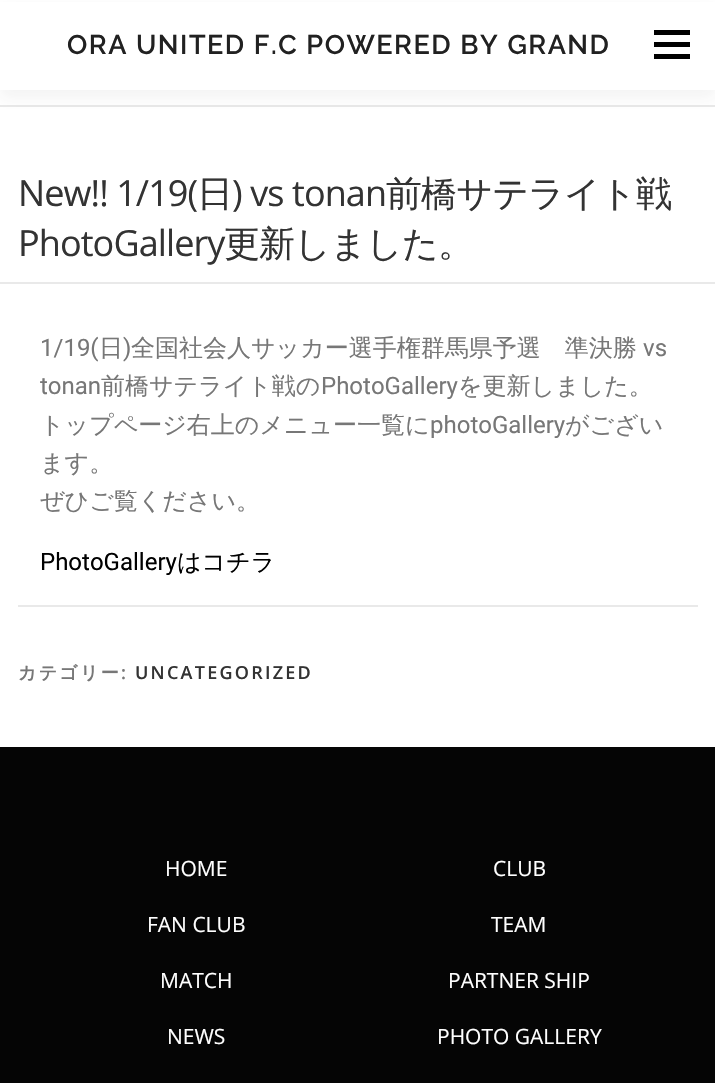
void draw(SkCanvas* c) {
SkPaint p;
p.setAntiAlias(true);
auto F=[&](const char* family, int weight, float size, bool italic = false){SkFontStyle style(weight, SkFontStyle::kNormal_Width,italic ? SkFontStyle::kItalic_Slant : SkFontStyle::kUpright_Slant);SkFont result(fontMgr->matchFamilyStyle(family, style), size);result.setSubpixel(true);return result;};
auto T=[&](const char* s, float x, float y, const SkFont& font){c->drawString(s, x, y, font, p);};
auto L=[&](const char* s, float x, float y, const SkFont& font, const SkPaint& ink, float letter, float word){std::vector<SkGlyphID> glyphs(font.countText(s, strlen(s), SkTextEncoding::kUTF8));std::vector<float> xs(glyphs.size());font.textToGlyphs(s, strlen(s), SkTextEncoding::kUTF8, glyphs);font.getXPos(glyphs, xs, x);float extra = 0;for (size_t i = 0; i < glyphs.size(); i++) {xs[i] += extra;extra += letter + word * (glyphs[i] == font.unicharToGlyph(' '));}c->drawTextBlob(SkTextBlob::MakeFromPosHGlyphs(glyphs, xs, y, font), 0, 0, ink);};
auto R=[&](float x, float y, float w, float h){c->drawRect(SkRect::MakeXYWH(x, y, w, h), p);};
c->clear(0xffffffff);
p.setColor(0xffe9e9e9);
R(0,105,715,2);
p.setColor(0x0f323232);
p.setMaskFilter(SkMaskFilter::MakeBlur(kNormal_SkBlurStyle, 7.5));
c->drawRect(SkRect::MakeXYWH(0,8,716,90),p);
p.setMaskFilter(nullptr);
p.setColor(0xffffffff);
R(0,2,715,88);
auto f1 = F("Raleway",600,27);
p.setColor(0xff212121);
L("ORA UNITED F.C POWERED BY GRAND",67,54,f1,p,1.5,0);
p.setColor(0xff000000);
R(654,42,36,5);
R(654,30,36,5);
R(654,54,36,5);
p.setColor(0xffe9e9e9);
R(0,282,715,2);
auto f2 = F("Open Sans",400,36);
p.setColor(0xff333333);
L("New!! 1/19(",18,206,f2,p,-.9,0);
auto f3 = F("WenQuanYi Zen Hei",500,36);
L("日",197,206,f3,p,-.9,0);
L(") vs tonan",232,206,f2,p,-.9,0);
L("前橋サテライト戦",386,206,f3,p,-.9,0);
L("PhotoGallery",18,256,f2,p,-.9,0);
L("更新しました。",224,256,f3,p,-.9,0);
auto f4 = F("Roboto",400,24);
p.setColor(0xff777777);
T("1/19(",40,356,f4);
auto f5 = F("WenQuanYi Zen Hei",500,24);
T("日",99,356,f5);
T(")",123,356,f4);
T("全国社会人サッカー選手権群馬県予選　準決勝",131,356,f5);
T("vs",643,356,f4);
T("tonan",40,394,f4);
T("前橋サテライト戦の",101,394,f5);
T("PhotoGallery",321,394,f4);
T("を更新しました。",458,394,f5);
T("トップページ右上のメニュー一覧に",40,433,f5);
T("photoGallery",430,433,f4);
T("がござい",565,433,f5);
T("ます。",40,471,f5);
T("ぜひご覧ください。",40,509,f5);
p.setColor(0xff000000);
T("PhotoGallery",40,570,f4);
T("はコチラ",177,570,f5);
p.setColor(0xffe9e9e9);
R(18,605,680,2);
auto f6 = F("WenQuanYi Zen Hei",700,18);
p.setColor(0xff777777);
L("カテゴリー",18,679,f6,p,2.25,0);
auto f7 = F("Open Sans",600,18);
L(":",121,679,f7,p,2.25,0);
p.setColor(0xff333333);
L("UNCATEGORIZED",135,679,f7,p,2.25,0);
p.setColor(0xff050505);
R(0,747,715,336);
auto f8 = F("Open Sans",400,21);
p.setColor(0xffffffff);
T("HOME",165,876,f8);
T("CLUB",493,876,f8);
T("FAN CLUB",147,932,f8);
T("TEAM",491,932,f8);
T("MATCH",160,988,f8);
T("PARTNER SHIP",448,988,f8);
T("NEWS",167,1044,f8);
T("PHOTO GALLERY",437,1044,f8);
}
